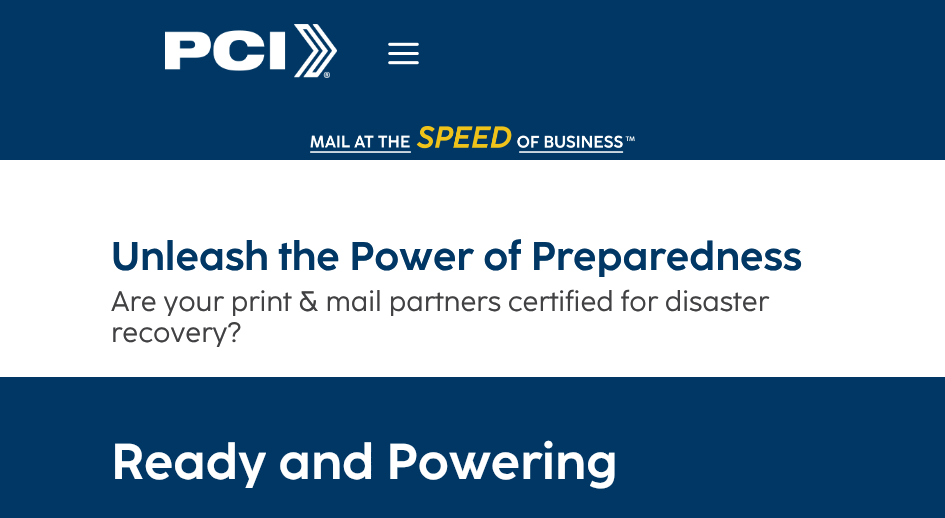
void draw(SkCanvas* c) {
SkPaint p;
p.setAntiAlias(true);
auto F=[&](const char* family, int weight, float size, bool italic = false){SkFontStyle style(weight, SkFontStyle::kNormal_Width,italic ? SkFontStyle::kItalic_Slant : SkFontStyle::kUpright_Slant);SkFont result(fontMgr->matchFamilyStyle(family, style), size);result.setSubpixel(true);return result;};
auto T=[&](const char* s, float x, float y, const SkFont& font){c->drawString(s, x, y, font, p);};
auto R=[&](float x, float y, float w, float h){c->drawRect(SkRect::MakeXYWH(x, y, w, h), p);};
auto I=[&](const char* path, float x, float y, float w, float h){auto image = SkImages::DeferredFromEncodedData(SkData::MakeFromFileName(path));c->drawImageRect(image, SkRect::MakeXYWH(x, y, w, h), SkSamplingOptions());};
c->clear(0xffffffff);
p.setColor(0xff003764);
R(0,0,945,160);
I("1.png",165,24,172,54);
I("2.png",388,42,31,23);
I("3.png",310,126,325,27);
auto f1 = F("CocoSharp",700,40);
T("Unleash the Power of Preparedness",111,270,f1);
auto f2 = F("CocoSharp",400,28);
p.setColor(0xff414042);
T("Are your print & mail partners certified for disaster",111,311,f2);
T("recovery?",111,342,f2);
p.setColor(0xff003764);
R(0,377,945,141);
auto f3 = F("CocoSharp",700,50);
p.setColor(0xffffffff);
T("Ready and Powering",111,479,f3);
}
